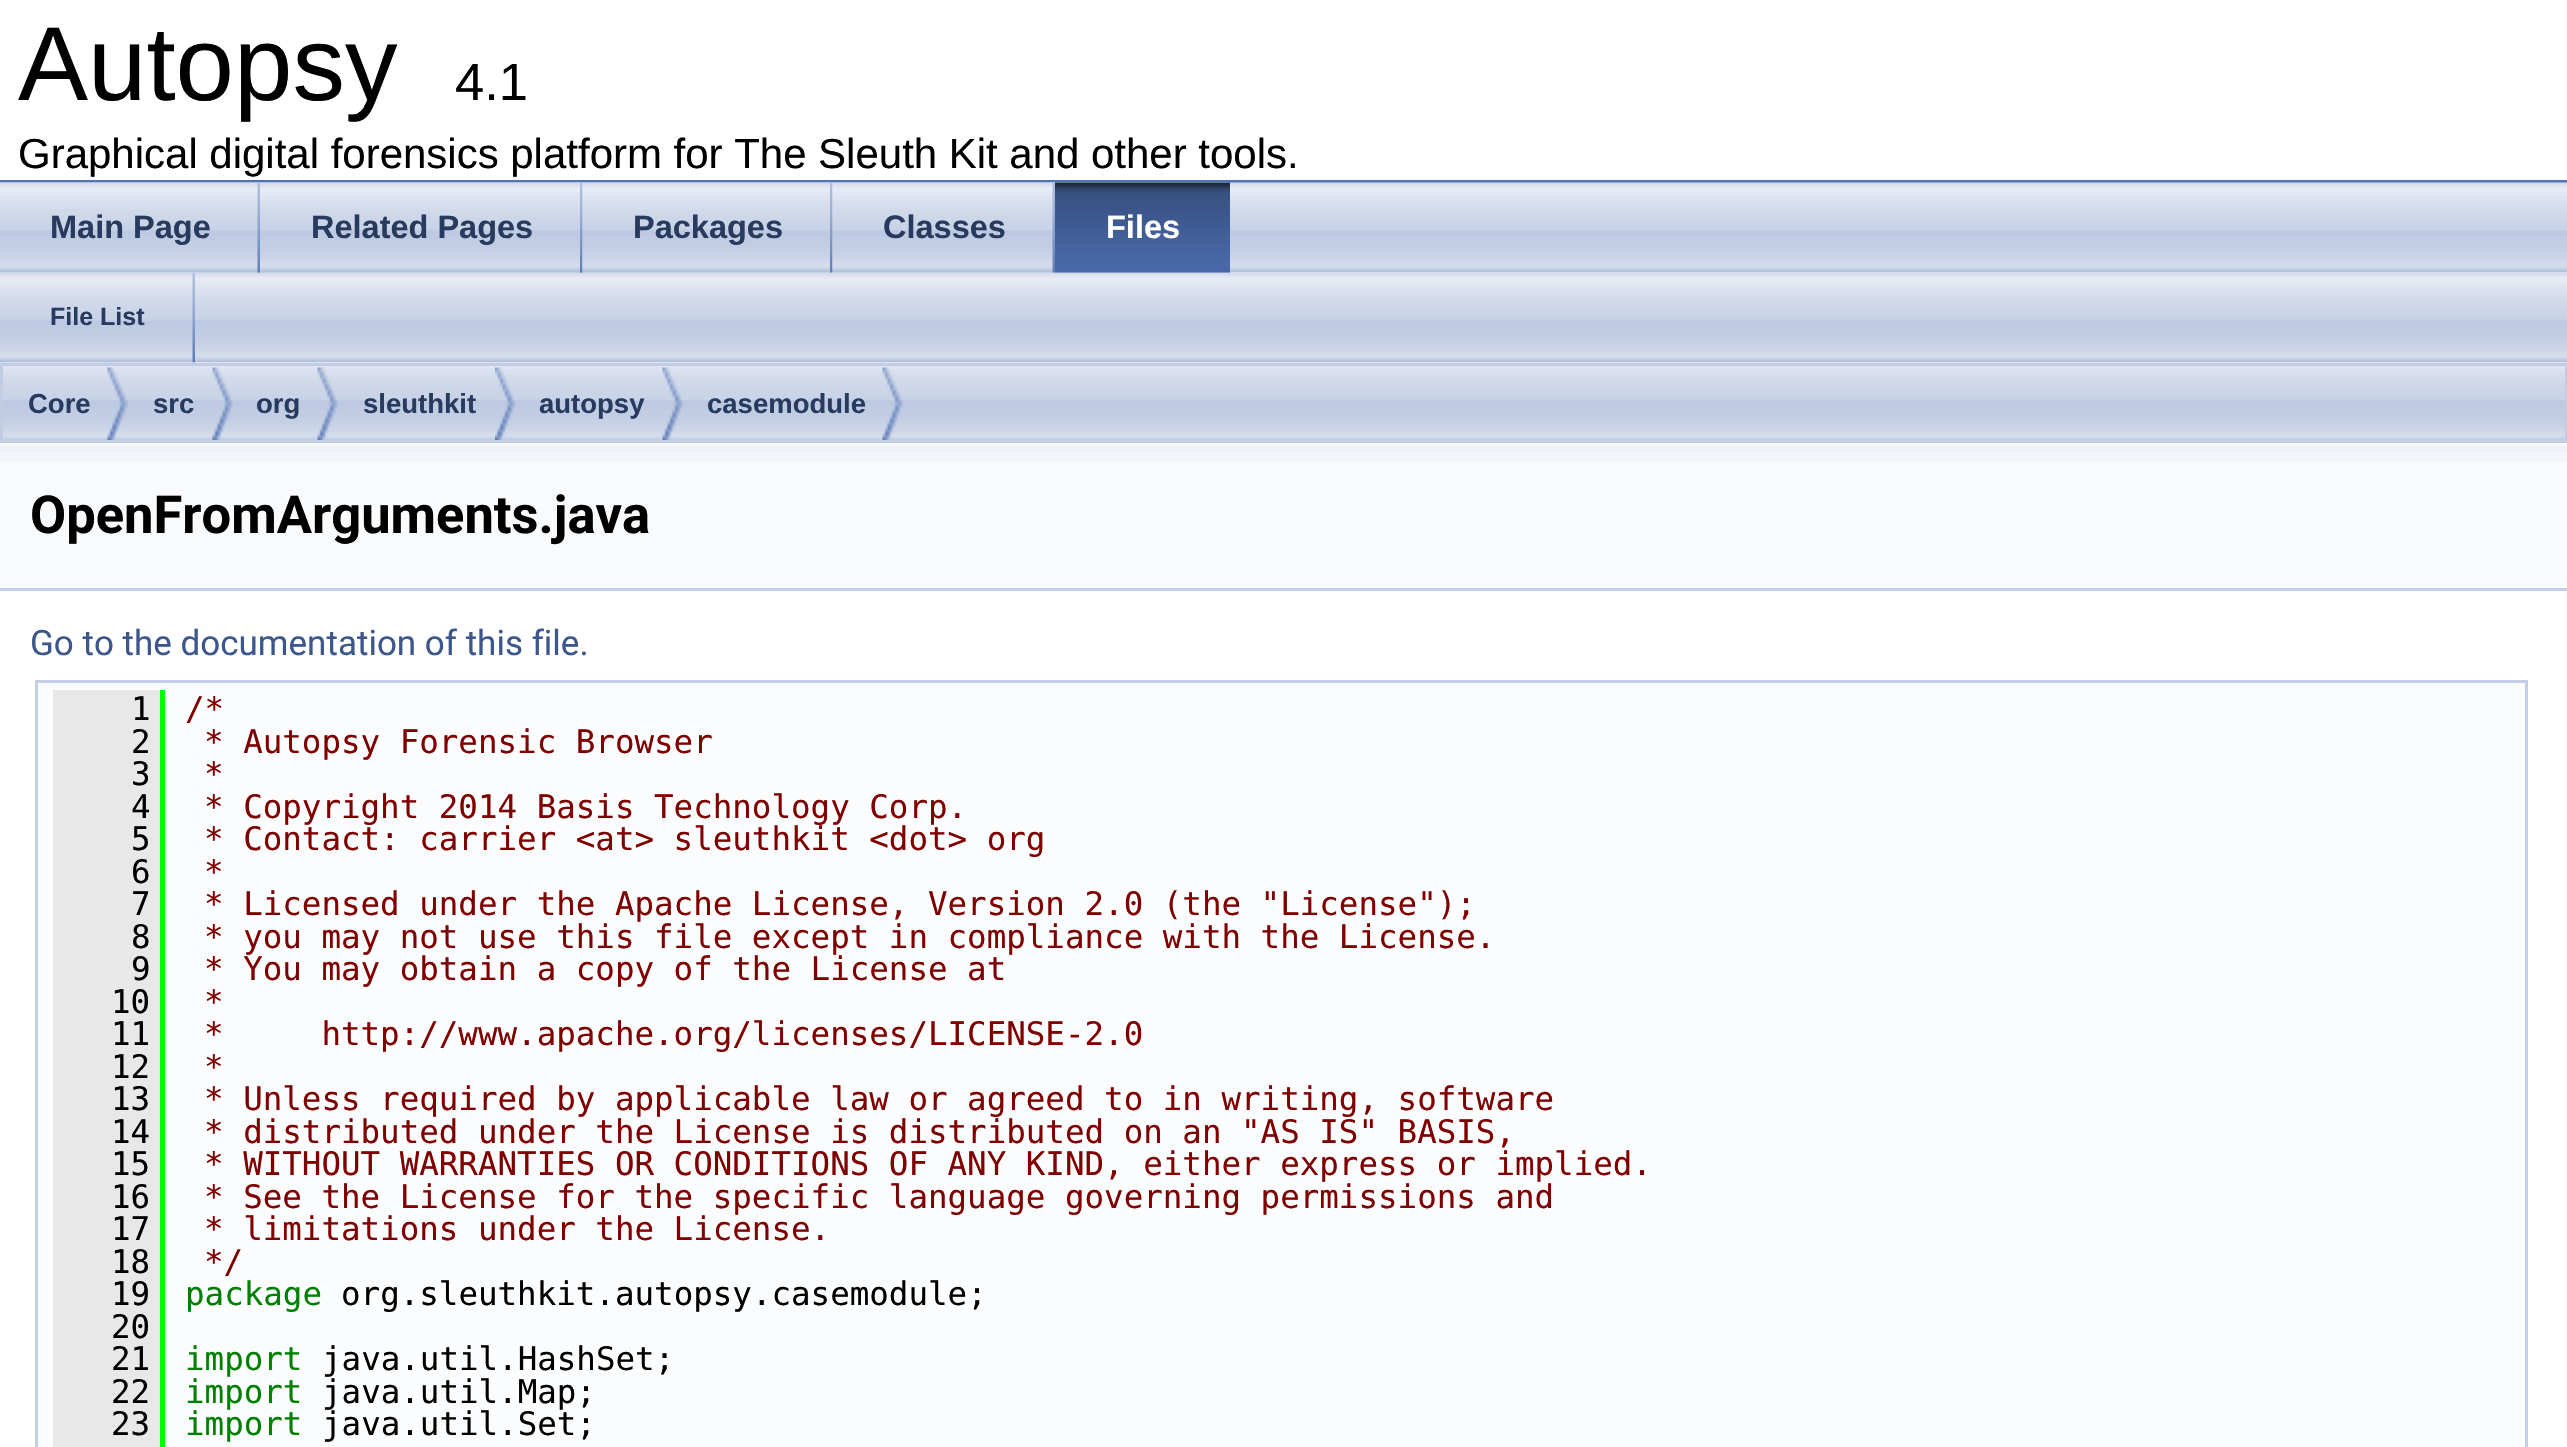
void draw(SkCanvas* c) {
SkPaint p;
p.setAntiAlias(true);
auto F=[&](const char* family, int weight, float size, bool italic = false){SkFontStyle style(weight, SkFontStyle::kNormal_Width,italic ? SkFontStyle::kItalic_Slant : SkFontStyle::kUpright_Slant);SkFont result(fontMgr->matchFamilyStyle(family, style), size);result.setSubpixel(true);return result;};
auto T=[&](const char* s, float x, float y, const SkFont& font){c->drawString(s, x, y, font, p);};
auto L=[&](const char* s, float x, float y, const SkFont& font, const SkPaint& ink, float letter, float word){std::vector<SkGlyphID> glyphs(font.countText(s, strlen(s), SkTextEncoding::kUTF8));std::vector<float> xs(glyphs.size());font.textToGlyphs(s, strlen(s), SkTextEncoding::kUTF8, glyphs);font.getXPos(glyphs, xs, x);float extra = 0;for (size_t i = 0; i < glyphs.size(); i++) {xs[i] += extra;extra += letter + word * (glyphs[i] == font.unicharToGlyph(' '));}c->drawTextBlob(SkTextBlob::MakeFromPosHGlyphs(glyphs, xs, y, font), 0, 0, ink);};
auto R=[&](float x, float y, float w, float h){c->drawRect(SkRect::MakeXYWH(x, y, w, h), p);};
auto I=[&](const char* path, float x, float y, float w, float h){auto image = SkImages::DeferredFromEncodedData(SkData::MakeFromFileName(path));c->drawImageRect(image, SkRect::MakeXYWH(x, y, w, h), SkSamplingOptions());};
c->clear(0xffffffff);
p.setColor(0xff5373b4);
R(0,180,2567,3);
auto f1 = F("Liberation Sans",400,105);
p.setColor(0xff000000);
T("Autopsy",18,100,f1);
auto f2 = F("Liberation Sans",400,52.5);
T("4.1",455,100,f2);
auto f3 = F("Liberation Sans",400,42);
L("Graphical digital forensics platform for The Sleuth Kit and other tools.",18,168,f3,p,0,-.1);
I("1.png",0,182,2567,91);
I("2.png",0,182,260,91);
I("3.png",257,183,3,90);
auto f4 = F("Liberation Sans",700,32.5);
p.setColor(0xff283a5d);
T("Main Page",50,238,f4);
I("4.png",260,182,323,91);
I("5.png",580,183,3,90);
T("Related Pages",311,238,f4);
I("6.png",582,182,251,91);
I("5.png",830,183,3,90);
T("Packages",633,238,f4);
I("7.png",832,182,223,91);
I("3.png",1052,183,3,90);
T("Classes",883,238,f4);
I("8.png",1055,182,175,91);
I("9.png",1055,182,175,91);
p.setColor(0xffffffff);
T("Files",1106,238,f4);
I("10.png",0,273,2567,90);
I("11.png",0,272,195,91);
I("12.png",192,272,3,91);
auto f5 = F("Liberation Sans",700,25);
p.setColor(0xff283a5d);
T("File List",50,325,f5);
I("13.png",0,362,2567,78);
p.setStroke(true);
p.setStrokeWidth(3);
p.setColor(0xffc2cde4);
c->drawRect(SkRect::MakeXYWH(1.5,364.5,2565,77),p);
I("14.png",107,367,21,73);
auto f6 = F("Liberation Sans",700,27.5);
p.setStroke(false);
p.setColor(0xff283a5d);
T("Core",28,413,f6);
I("14.png",212,367,21,73);
T("src",153,413,f6);
I("14.png",317,367,21,73);
T("org",256,413,f6);
I("15.png",495,367,20,73);
T("sleuthkit",363,413,f6);
I("14.png",662,367,21,73);
T("autopsy",539,413,f6);
I("14.png",882,367,21,73);
T("casemodule",707,413,f6);
p.setColor(0xfff9fafc);
R(0,462,2567,126);
I("16.png",0,443,2567,19);
p.setColor(0xffc4cfe5);
R(0,588,2567,3);
auto f7 = F("Roboto",700,52.5);
p.setColor(0xff000000);
T("OpenFromArguments.java",30,533,f7);
auto f8 = F("Roboto",400,35);
p.setColor(0xff3d578c);
T("Go to the documentation of this file.",30,655,f8);
p.setColor(0xfffbfcfd);
c->drawRect(SkRect::MakeXYWH(36.5,681.5,2490,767),p);
p.setStroke(true);
p.setColor(0xffc4cfe5);
c->drawRect(SkRect::MakeXYWH(36.5,681.5,2490,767),p);
p.setStroke(false);
p.setColor(0xffe8e8e8);
R(53,690,107,757);
auto f9 = F("DejaVu Sans Mono",400,32.5);
p.setColor(0xff000000);
T("1",131,720,f9);
p.setColor(0xff00ff00);
R(160,690,5,757);
p.setColor(0xff800000);
T("/*",185,720,f9);
p.setColor(0xff000000);
T("2",131,753,f9);
p.setColor(0xff800000);
T("* Autopsy Forensic Browser",204,753,f9);
p.setColor(0xff000000);
T("3",131,785,f9);
p.setColor(0xff800000);
T("*",204,785,f9);
p.setColor(0xff000000);
T("4",131,818,f9);
p.setColor(0xff800000);
T("* Copyright 2014 Basis Technology Corp.",204,818,f9);
p.setColor(0xff000000);
T("5",131,850,f9);
p.setColor(0xff800000);
T("* Contact: carrier <at> sleuthkit <dot> org",204,850,f9);
p.setColor(0xff000000);
T("6",131,883,f9);
p.setColor(0xff800000);
T("*",204,883,f9);
p.setColor(0xff000000);
T("7",131,915,f9);
p.setColor(0xff800000);
T("* Licensed under the Apache License, Version 2.0 (the \"License\");",204,915,f9);
p.setColor(0xff000000);
T("8",131,948,f9);
p.setColor(0xff800000);
T("* you may not use this file except in compliance with the License.",204,948,f9);
p.setColor(0xff000000);
T("9",131,980,f9);
p.setColor(0xff800000);
T("* You may obtain a copy of the License at",204,980,f9);
p.setColor(0xff000000);
T("10",111,1013,f9);
p.setColor(0xff800000);
T("*",204,1013,f9);
p.setColor(0xff000000);
T("11",111,1045,f9);
p.setColor(0xff800000);
T("*     http://www.apache.org/licenses/LICENSE-2.0",204,1045,f9);
p.setColor(0xff000000);
T("12",111,1078,f9);
p.setColor(0xff800000);
T("*",204,1078,f9);
p.setColor(0xff000000);
T("13",111,1110,f9);
p.setColor(0xff800000);
T("* Unless required by applicable law or agreed to in writing, software",204,1110,f9);
p.setColor(0xff000000);
T("14",111,1143,f9);
p.setColor(0xff800000);
T("* distributed under the License is distributed on an \"AS IS\" BASIS,",204,1143,f9);
p.setColor(0xff000000);
T("15",111,1175,f9);
p.setColor(0xff800000);
T("* WITHOUT WARRANTIES OR CONDITIONS OF ANY KIND, either express or implied.",204,1175,f9);
p.setColor(0xff000000);
T("16",111,1208,f9);
p.setColor(0xff800000);
T("* See the License for the specific language governing permissions and",204,1208,f9);
p.setColor(0xff000000);
T("17",111,1240,f9);
p.setColor(0xff800000);
T("* limitations under the License.",204,1240,f9);
p.setColor(0xff000000);
T("18",111,1273,f9);
p.setColor(0xff800000);
T("*/",204,1273,f9);
p.setColor(0xff000000);
T("19",111,1305,f9);
p.setColor(0xff008000);
T("package",185,1305,f9);
p.setColor(0xff000000);
T("org.sleuthkit.autopsy.casemodule;",341,1305,f9);
T("20",111,1338,f9);
T("21",111,1370,f9);
p.setColor(0xff008000);
T("import",185,1370,f9);
p.setColor(0xff000000);
T("java.util.HashSet;",322,1370,f9);
T("22",111,1403,f9);
p.setColor(0xff008000);
T("import",185,1403,f9);
p.setColor(0xff000000);
T("java.util.Map;",322,1403,f9);
T("23",111,1435,f9);
p.setColor(0xff008000);
T("import",185,1435,f9);
p.setColor(0xff000000);
T("java.util.Set;",322,1435,f9);
}
